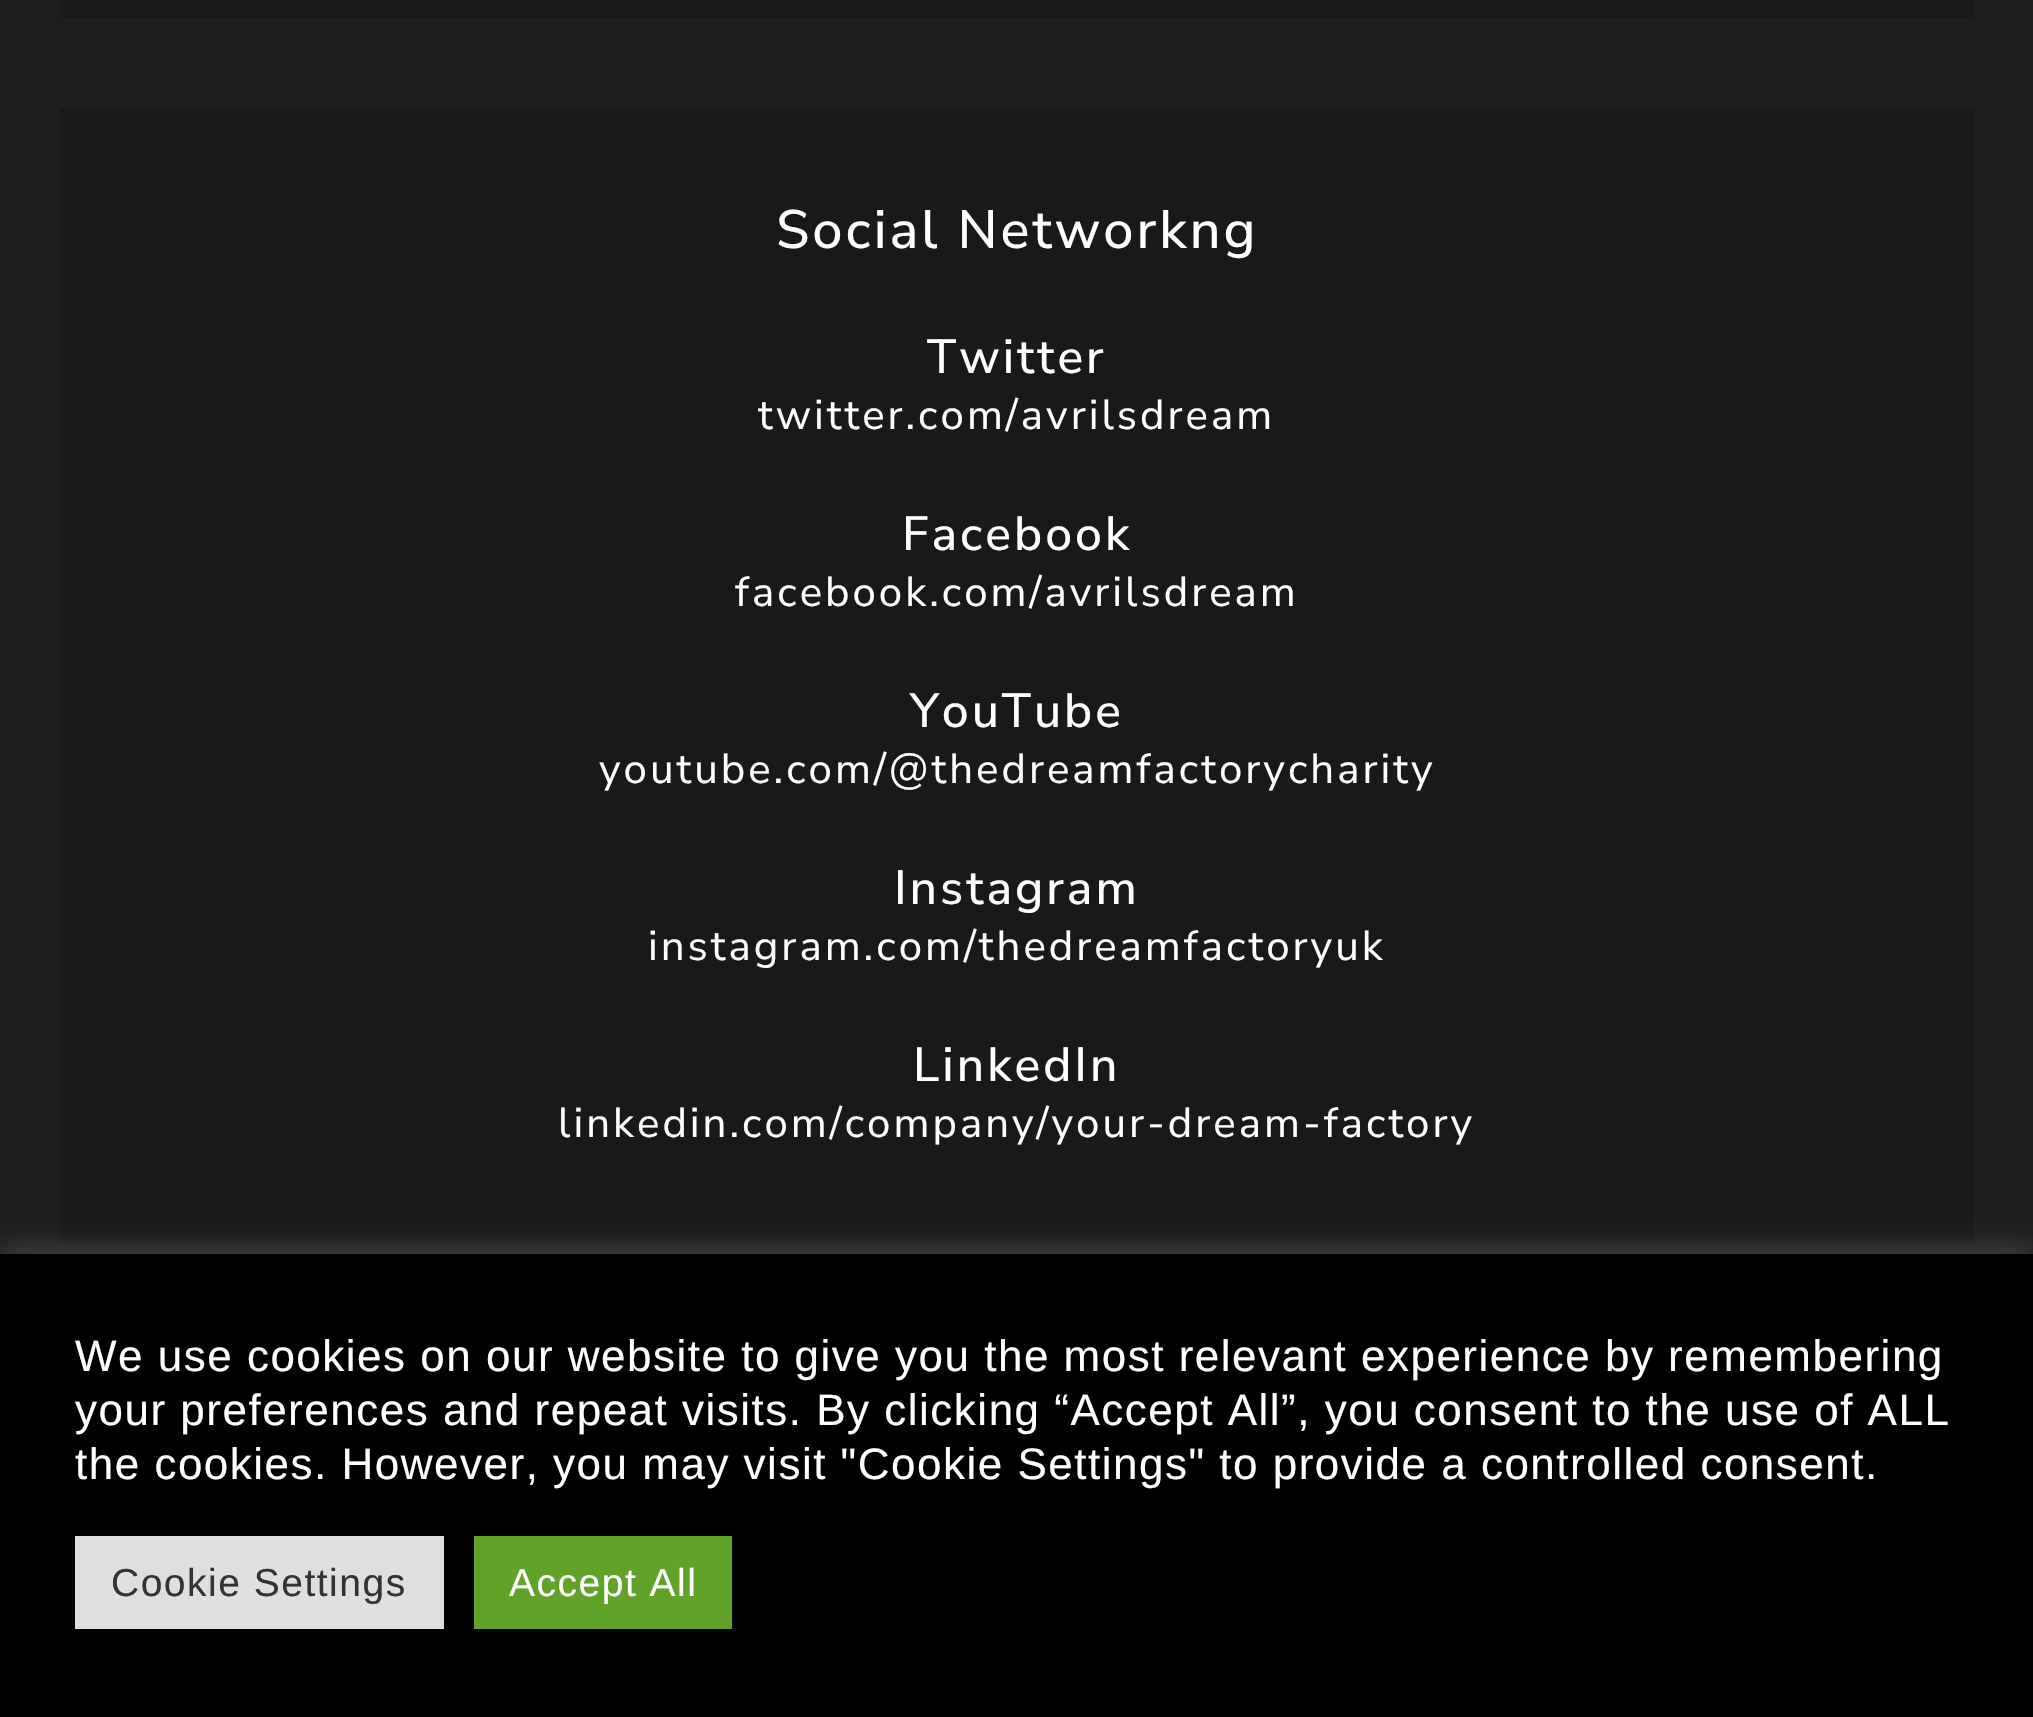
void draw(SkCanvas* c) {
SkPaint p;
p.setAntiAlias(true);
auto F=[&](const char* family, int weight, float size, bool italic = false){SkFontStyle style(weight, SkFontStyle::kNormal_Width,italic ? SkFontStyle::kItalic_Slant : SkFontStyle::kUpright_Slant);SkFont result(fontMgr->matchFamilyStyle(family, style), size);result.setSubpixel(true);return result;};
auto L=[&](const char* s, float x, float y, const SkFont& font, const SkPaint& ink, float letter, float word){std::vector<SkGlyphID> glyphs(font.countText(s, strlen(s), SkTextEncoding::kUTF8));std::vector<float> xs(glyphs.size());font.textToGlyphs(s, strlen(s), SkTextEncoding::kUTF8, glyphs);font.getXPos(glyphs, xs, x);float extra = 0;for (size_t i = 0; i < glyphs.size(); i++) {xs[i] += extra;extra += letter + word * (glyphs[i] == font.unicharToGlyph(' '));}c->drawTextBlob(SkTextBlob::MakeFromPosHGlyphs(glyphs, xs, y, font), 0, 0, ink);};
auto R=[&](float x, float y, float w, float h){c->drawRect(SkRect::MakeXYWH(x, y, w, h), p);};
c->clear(0xff1e1e1e);
p.setColor(0xff191919);
R(60,0,1914,18);
R(60,108,1914,1134);
auto f1 = F("Nunito Sans",500,54);
p.setColor(0xffffffff);
L("Social Networkng",776,248,f1,p,3,0);
auto f2 = F("Nunito Sans",500,48);
L("Twitter",927,373,f2,p,3,0);
auto f3 = F("Nunito Sans",400,42);
L("twitter.com/avrilsdream",758,429,f3,p,3,0);
L("Facebook",902,550,f2,p,3,0);
L("facebook.com/avrilsdream",735,606,f3,p,3,0);
L("YouTube",910,727,f2,p,3,0);
L("youtube.com/@thedreamfactorycharity",599,783,f3,p,3,0);
L("Instagram",894,904,f2,p,3,0);
L("instagram.com/thedreamfactoryuk",648,960,f3,p,3,0);
L("LinkedIn",913,1081,f2,p,3,0);
L("linkedin.com/company/your-dream-factory",558,1137,f3,p,3,0);
p.setColor(0x4dacabab);
p.setMaskFilter(SkMaskFilter::MakeBlur(kNormal_SkBlurStyle, 15));
c->drawRect(SkRect::MakeXYWH(0,1251,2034,465),p);
p.setMaskFilter(nullptr);
p.setColor(0xff000000);
R(0,1254,2033,463);
auto f4 = F("Liberation Sans",400,44);
p.setColor(0xffffffff);
L("We use cookies on our website to give you the most relevant experience by remembering",75,1371,f4,p,1.5,0);
L("your preferences and repeat visits. By clicking “Accept All”, you consent to the use of ALL",75,1425,f4,p,1.5,0);
L("the cookies. However, you may visit \"Cookie Settings\" to provide a controlled consent.",75,1479,f4,p,1.5,0);
p.setColor(0xffdedfe0);
R(75,1536,369,93);
auto f5 = F("Liberation Sans",400,39);
p.setColor(0xff333333);
L("Cookie Settings",111,1596,f5,p,1.5,0);
p.setColor(0xff61a229);
R(474,1536,258,93);
p.setColor(0xffffffff);
L("Accept All",509,1596,f5,p,1.5,0);
}
